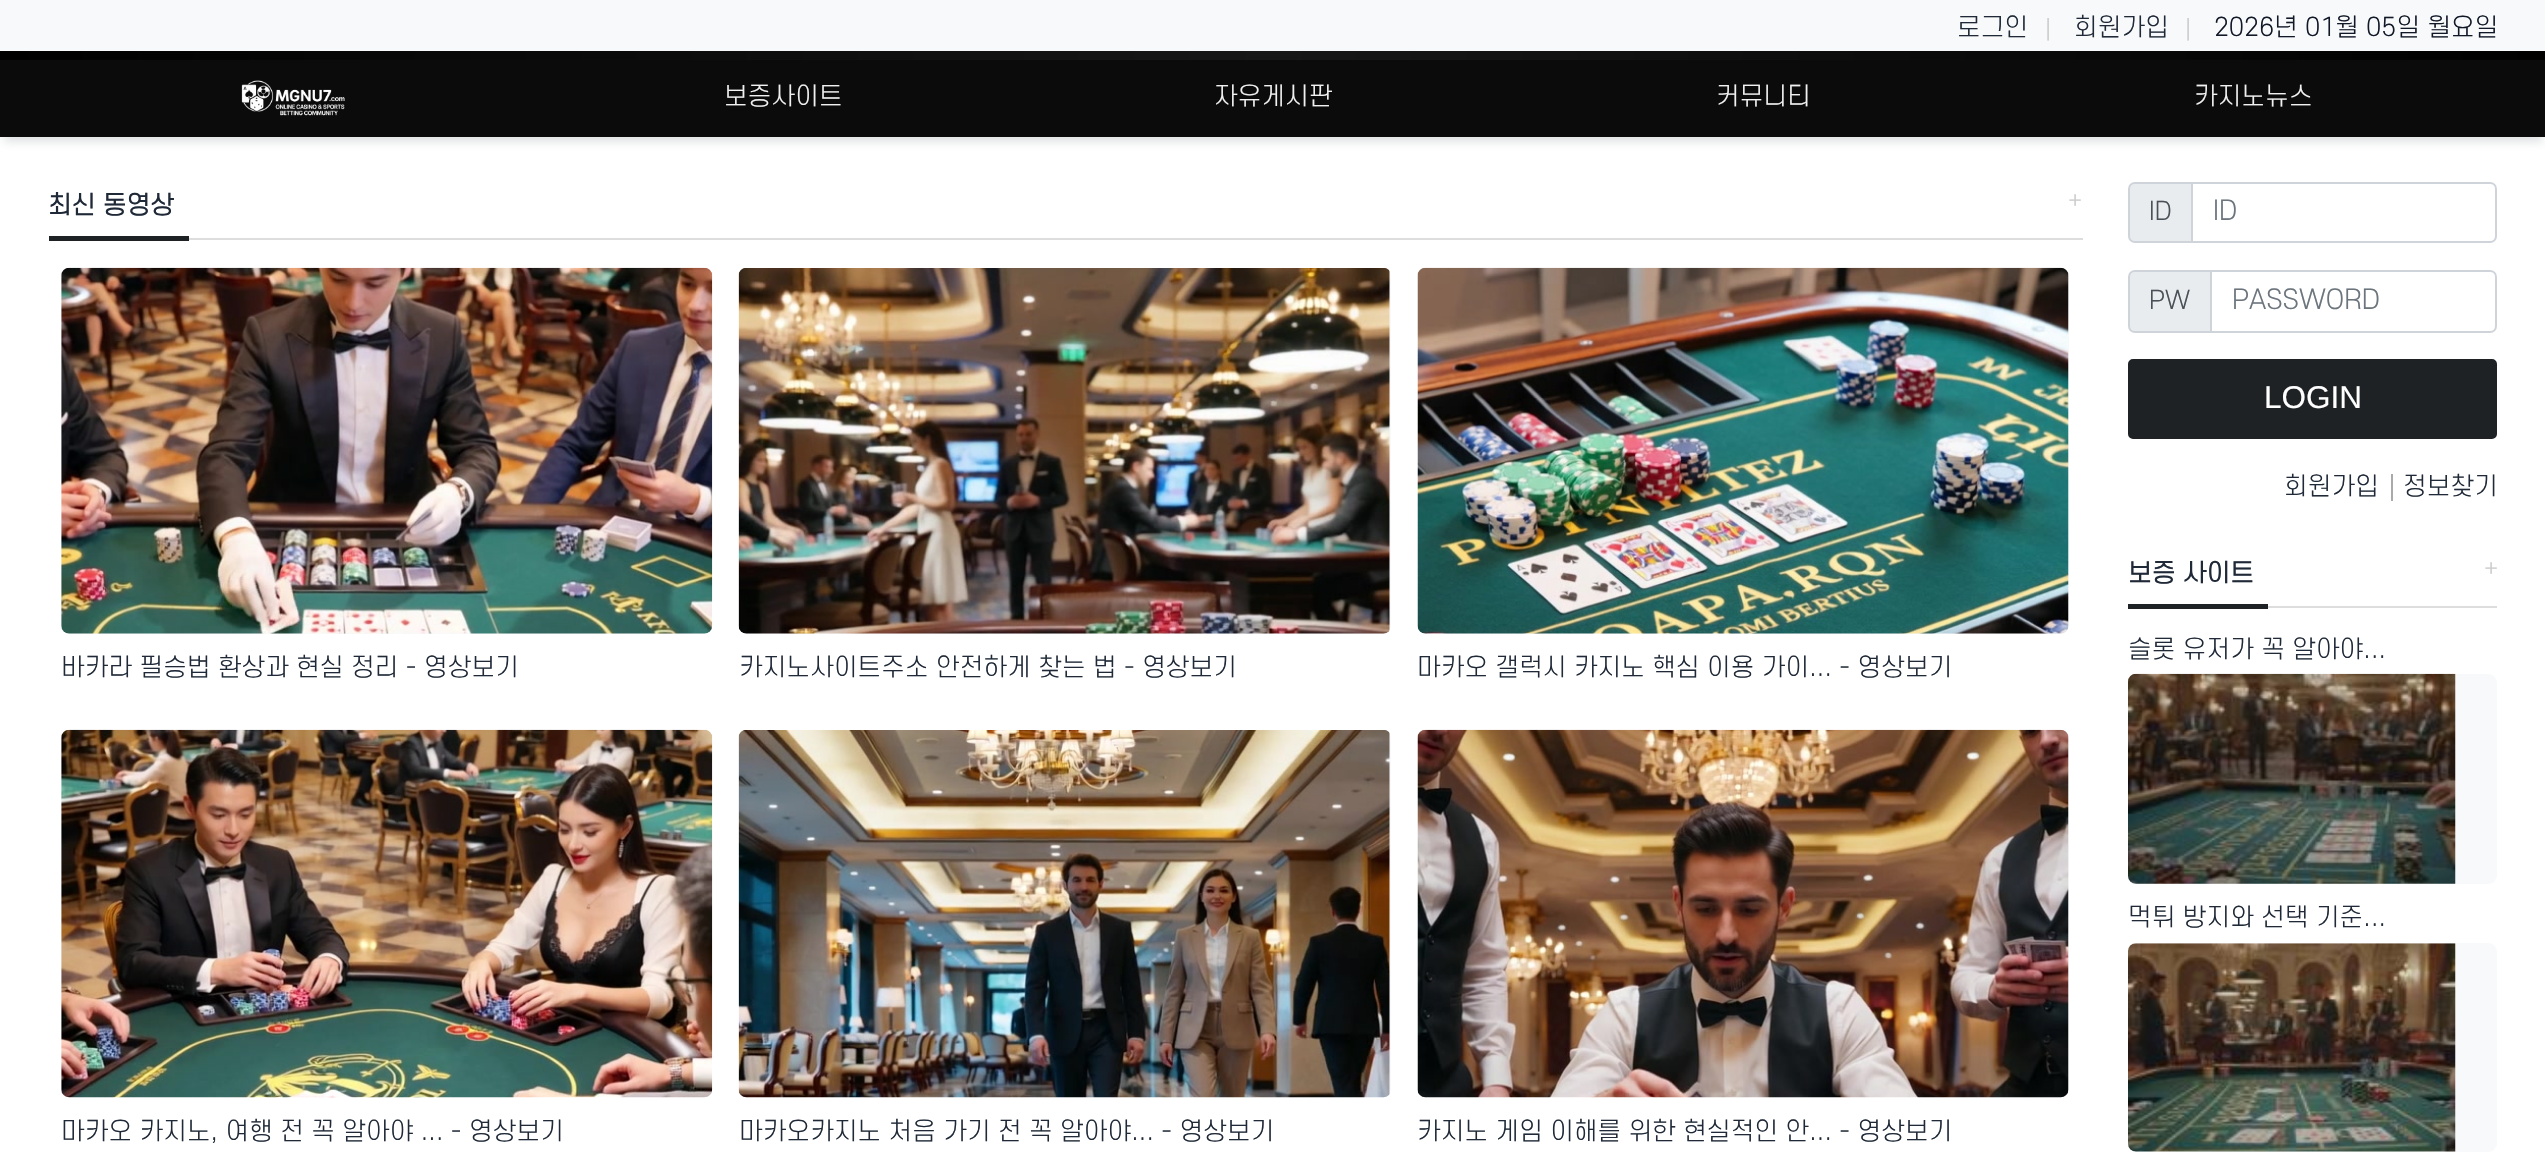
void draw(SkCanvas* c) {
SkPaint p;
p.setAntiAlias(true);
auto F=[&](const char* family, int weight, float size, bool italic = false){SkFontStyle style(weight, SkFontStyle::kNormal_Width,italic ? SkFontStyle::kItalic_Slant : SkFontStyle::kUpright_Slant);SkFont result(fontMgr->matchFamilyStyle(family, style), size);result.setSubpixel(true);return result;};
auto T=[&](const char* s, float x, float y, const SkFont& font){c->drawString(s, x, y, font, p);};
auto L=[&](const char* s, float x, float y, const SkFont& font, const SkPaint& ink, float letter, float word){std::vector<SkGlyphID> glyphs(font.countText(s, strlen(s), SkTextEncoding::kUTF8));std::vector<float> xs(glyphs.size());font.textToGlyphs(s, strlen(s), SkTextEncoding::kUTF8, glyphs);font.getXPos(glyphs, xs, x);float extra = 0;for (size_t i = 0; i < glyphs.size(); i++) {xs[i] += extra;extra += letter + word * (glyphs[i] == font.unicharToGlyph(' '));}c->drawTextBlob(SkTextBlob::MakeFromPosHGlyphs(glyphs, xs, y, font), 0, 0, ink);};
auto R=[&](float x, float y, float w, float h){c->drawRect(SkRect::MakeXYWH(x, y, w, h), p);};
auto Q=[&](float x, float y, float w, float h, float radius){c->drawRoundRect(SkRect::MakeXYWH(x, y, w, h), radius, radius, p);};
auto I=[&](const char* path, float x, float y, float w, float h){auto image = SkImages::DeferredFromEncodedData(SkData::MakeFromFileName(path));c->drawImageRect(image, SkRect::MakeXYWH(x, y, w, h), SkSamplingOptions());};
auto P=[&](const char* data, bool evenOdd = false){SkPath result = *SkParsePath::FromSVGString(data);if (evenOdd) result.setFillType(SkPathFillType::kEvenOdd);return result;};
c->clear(0xffffffff);
p.setColor(0xfff8f9fa);
R(0,0,2545,51);
auto f1 = F("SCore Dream",300,24.5);
p.setColor(0xff1f2937);
L("로그인",1957,36,f1,p,.2,0);
auto f2 = F("Dotum",400,24.5);
p.setColor(0xffcccccc);
L("|",2042,38,f2,p,.2,0);
p.setColor(0xff1f2937);
L("회원가입",2074,36,f1,p,.2,0);
p.setColor(0xffcccccc);
L("|",2182,38,f2,p,.2,0);
p.setColor(0xff111827);
L("2026년 01월 05일 월요일",2214,36,f1,p,.2,0);
{
const SkColor colors[] = {0xff000000,0xff171717,0xff000000};
const float stops[] = {0,.5,1};
const SkPoint ends[] = {{0,55}, {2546,55}};
p.setShader(SkGradientShader::MakeLinear(ends, colors, stops, 3, SkTileMode::kClamp));
p.setAlpha(255);
}
R(0,51,2545,9);
p.setShader(nullptr);
p.setColor(0x26323c46);
p.setMaskFilter(SkMaskFilter::MakeBlur(kNormal_SkBlurStyle, 4.5));
c->drawRect(SkRect::MakeXYWH(4,72,2539,70),p);
p.setMaskFilter(nullptr);
p.setColor(0xff0b0b0c);
R(0,60,2545,77);
I("1.png",241,80,104,36);
p.setColor(0xfff1f1f1);
L("보증사이트",724,105,f1,p,.2,0);
L("자유게시판",1214,105,f1,p,.2,0);
L("커뮤니티",1716,105,f1,p,.2,0);
L("카지노뉴스",2194,105,f1,p,.2,0);
auto f3 = F("SCore Dream",700,24.5);
p.setColor(0xff1f2937);
L("최신 동영상",48,214,f3,p,.2,0);
p.setColor(0xffcccccc);
L("+",2068,209,f1,p,.2,0);
p.setColor(0xff1f2225);
R(49,236,140,5);
p.setColor(0xffdddddd);
R(189,238,1894,2);
p.setColor(0xfff8f9fa);
Q(61,268,651,366,9);
I("2.png",61,267,652,367);
p.setColor(0xff1f2937);
L("바카라 필승법 환상과 현실 정리 - 영상보기",61,676,f1,p,.2,0);
p.setColor(0xfff8f9fa);
Q(739,268,652,366,9);
I("3.png",738,268,652,366);
p.setColor(0xff1f2937);
L("카지노사이트주소 안전하게 찾는 법 - 영상보기",739,676,f1,p,.2,0);
p.setColor(0xfff8f9fa);
Q(1418,268,651,366,9);
I("4.png",1417,267,652,367);
p.setColor(0xff1f2937);
L("마카오 갤럭시 카지노 핵심 이용 가이... - 영상보기",1417,676,f1,p,.2,0);
p.setColor(0xfff8f9fa);
Q(61,730,651,367,9);
I("5.png",61,729,652,369);
p.setColor(0xff1f2937);
L("마카오 카지노, 여행 전 꼭 알아야 ... - 영상보기",61,1140,f1,p,.2,0);
p.setColor(0xfff8f9fa);
Q(739,730,652,367,9);
I("6.png",738,730,652,368);
p.setColor(0xff1f2937);
L("마카오카지노 처음 가기 전 꼭 알아야... - 영상보기",739,1140,f1,p,.2,0);
p.setColor(0xfff8f9fa);
Q(1418,730,651,367,9);
I("7.png",1417,729,652,369);
p.setColor(0xff1f2937);
L("카지노 게임 이해를 위한 현실적인 안... - 영상보기",1417,1140,f1,p,.2,0);
p.setColor(0xffe9ecef);
c->drawPath(P("M2135 183h57v59h-57c-3.5 0-6-2.5-6-6v-47c0-3.5 2.5-6 6-6z"),p);
p.setStroke(true);
p.setStrokeWidth(2);
p.setColor(0xffced4da);
c->drawPath(P("M2135 183h57v59h-57c-3.5 0-6-2.5-6-6v-47c0-3.5 2.5-6 6-6z"),p);
p.setStroke(false);
p.setColor(0xff495057);
L("ID",2149,220,f1,p,.2,0);
p.setStroke(true);
p.setColor(0xffced4da);
c->drawPath(P("M2192 183h298c3.5 0 6 2.5 6 6v47c0 3.5-2.5 6-6 6h-298z"),p);
auto f4 = F("SCore Dream",300,26.25);
p.setStroke(false);
p.setColor(0xff6c757d);
T("ID",2213,220,f4);
p.setColor(0xffe9ecef);
c->drawPath(P("M2135 271h76v61h-76c-3.5 0-6-2.5-6-6v-49c0-3.5 2.5-6 6-6z"),p);
p.setStroke(true);
p.setColor(0xffced4da);
c->drawPath(P("M2135 271h76v61h-76c-3.5 0-6-2.5-6-6v-49c0-3.5 2.5-6 6-6z"),p);
p.setStroke(false);
p.setColor(0xff495057);
L("PW",2149,309,f1,p,.2,0);
p.setStroke(true);
p.setColor(0xffced4da);
c->drawPath(P("M2211 271h279c3.5 0 6 2.5 6 6v49c0 3.5-2.5 6-6 6h-279z"),p);
p.setStroke(false);
p.setColor(0xff6c757d);
T("PASSWORD",2232,309,f4);
p.setColor(0xff1f2225);
c->drawRoundRect(SkRect::MakeXYWH(2129,360,367,78),4,4,p);
p.setStroke(true);
c->drawRoundRect(SkRect::MakeXYWH(2129,360,367,78),4,4,p);
auto f5 = F("Liberation Sans",400,31.5);
p.setStroke(false);
p.setColor(0xffffffff);
T("LOGIN",2264,408,f5);
p.setColor(0xff1f2937);
L("회원가입",2284,495,f1,p,.2,0);
p.setColor(0xffaaaaaa);
R(2391,474,2,27);
p.setColor(0xff1f2937);
L("정보찾기",2403,495,f1,p,.2,0);
L("보증 사이트",2128,582,f3,p,.2,0);
p.setColor(0xffcccccc);
L("+",2484,577,f1,p,.2,0);
p.setColor(0xff1f2225);
R(2128,604,140,5);
p.setColor(0xffdddddd);
R(2268,606,229,2);
p.setColor(0xff1f2937);
L("슬롯 유저가 꼭 알아야...",2128,658,f1,p,.2,0);
p.setColor(0xfff8f9fa);
Q(2128,674,369,210,9);
I("8.png",2128,673,328,211);
p.setColor(0xff1f2937);
L("먹튀 방지와 선택 기준...",2128,926,f1,p,.2,0);
p.setColor(0xfff8f9fa);
Q(2128,943,369,209,9);
I("9.png",2128,943,328,209);
}
